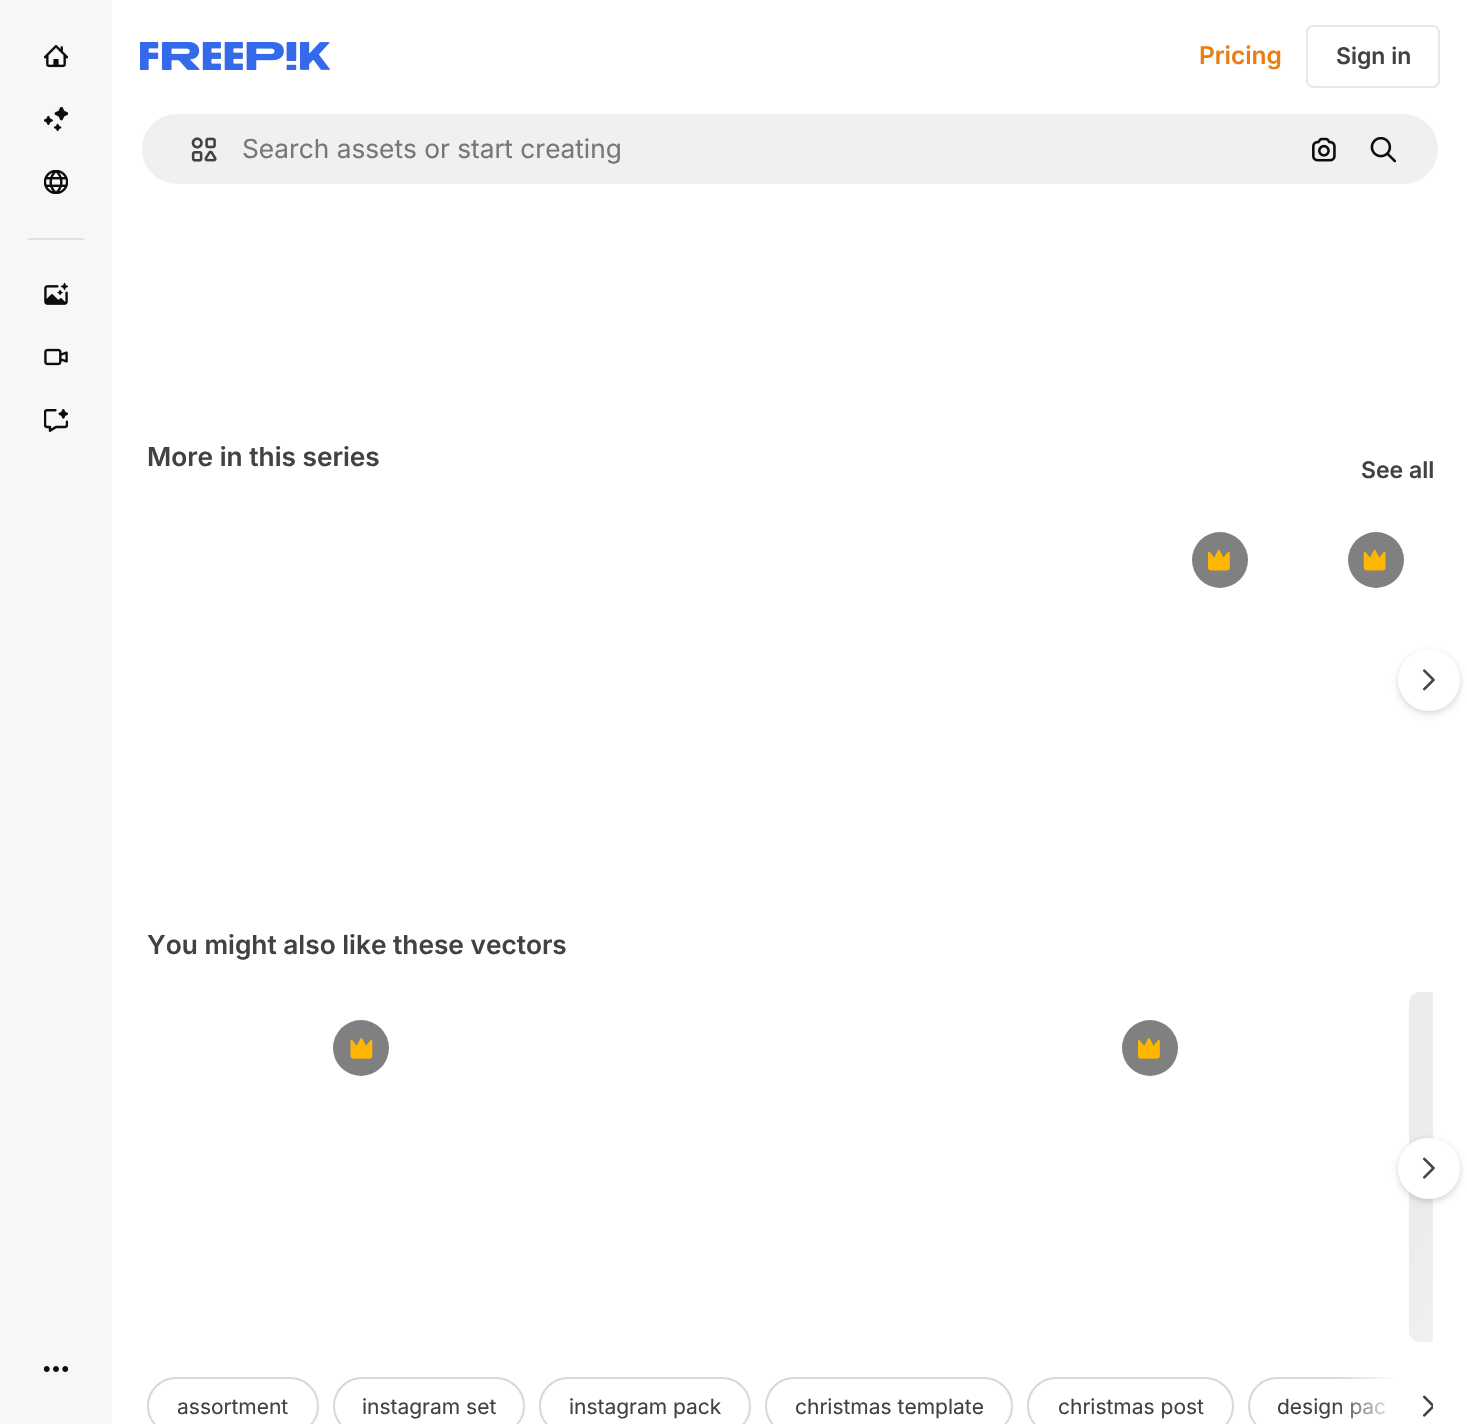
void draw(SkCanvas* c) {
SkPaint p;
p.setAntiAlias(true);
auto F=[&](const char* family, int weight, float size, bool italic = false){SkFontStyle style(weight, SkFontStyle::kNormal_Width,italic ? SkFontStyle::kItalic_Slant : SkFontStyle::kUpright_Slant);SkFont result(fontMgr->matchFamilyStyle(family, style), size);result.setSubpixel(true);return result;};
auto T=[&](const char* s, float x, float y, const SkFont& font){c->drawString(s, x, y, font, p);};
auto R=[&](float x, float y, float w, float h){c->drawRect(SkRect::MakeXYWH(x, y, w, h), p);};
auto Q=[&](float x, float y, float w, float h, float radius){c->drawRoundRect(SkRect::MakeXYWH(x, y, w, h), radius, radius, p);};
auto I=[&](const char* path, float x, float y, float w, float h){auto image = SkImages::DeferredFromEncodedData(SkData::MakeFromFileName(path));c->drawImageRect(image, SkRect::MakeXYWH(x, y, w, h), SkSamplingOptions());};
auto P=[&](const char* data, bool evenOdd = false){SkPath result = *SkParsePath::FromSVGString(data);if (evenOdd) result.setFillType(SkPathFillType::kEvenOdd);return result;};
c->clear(0xffffffff);
p.setColor(0xfff7f7f7);
R(0,0,112,1424);
I("1.png",44,45,24,23);
I("2.png",44,107,24,24);
I("3.png",44,170,24,24);
p.setColor(0xffe0e0e0);
R(28,238,56,2);
I("4.png",44,282,24,23);
I("5.png",44,348,24,18);
I("6.png",44,409,24,23);
I("7.png",44,1366,24,6);
I("8.png",140,42,190,28);
auto f1 = F("Inter",600,24.5);
p.setColor(0xffea7e11);
T("Pricing",1199,64,f1);
p.setStroke(true);
p.setStrokeWidth(2);
p.setColor(0xffe7e7e7);
c->drawRoundRect(SkRect::MakeXYWH(1307,26,132,61),6,6,p);
auto f2 = F("Inter",600,23);
p.setStroke(false);
p.setColor(0xff424242);
T("Sign in",1336,64,f2);
p.setColor(0xfff0f0f0);
c->drawRoundRect(SkRect::MakeXYWH(141,113,1298,72),36,36,p);
p.setStroke(true);
p.setColor(0xffffffff);
c->drawRoundRect(SkRect::MakeXYWH(141,113,1298,72),36,36,p);
I("9.png",191,137,26,25);
auto f3 = F("Inter",400,26.25);
p.setStroke(false);
p.setColor(0xff777777);
T("Search assets or start creating",242,158,f3);
I("10.png",1312,137,24,25);
I("11.png",1370,137,27,26);
auto f4 = F("Inter",600,26.25);
p.setColor(0xff424242);
T("More in this series",147,466,f4);
T("See all",1361,478,f2);
p.setColor(0xff808080);
c->drawCircle(1220,560,28,p);
I("12.png",1208,550,22,21);
c->drawCircle(1376,560,28,p);
I("13.png",1363,550,23,21);
p.setColor(0x26374957);
p.setMaskFilter(SkMaskFilter::MakeBlur(kNormal_SkBlurStyle, 4.5));
c->drawRoundRect(SkRect::MakeXYWH(1398,653,62,61),30.5,30.5,p);
p.setMaskFilter(nullptr);
p.setColor(0x1a374957);
p.setMaskFilter(SkMaskFilter::MakeBlur(kNormal_SkBlurStyle, 2));
c->drawRoundRect(SkRect::MakeXYWH(1398,651,62,61),30.5,30.5,p);
p.setMaskFilter(nullptr);
p.setColor(0xffffffff);
c->drawCircle(1429,680,31,p);
I("14.png",1423,669,12,22);
p.setColor(0xff424242);
T("You might also like these vectors",147,954,f4);
p.setColor(0xff808080);
c->drawCircle(361,1048,28,p);
I("15.png",350,1038,23,21);
c->drawCircle(1150,1048,28,p);
I("16.png",1138,1038,22,21);
{
const SkColor colors[] = {0xffececec,0xfff5f5f5,0xffececec};
const float stops[] = {.08,.18,.33};
const SkPoint ends[] = {{1414,978}, {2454,1356}};
p.setShader(SkGradientShader::MakeLinear(ends, colors, stops, 3, SkTileMode::kClamp));
p.setAlpha(255);
}
c->drawPath(P("M1420 992h13v350h-13c-6 0-11-5-11-11v-328c0-6 5-11 11-11z"),p);
p.setShader(nullptr);
p.setColor(0x26374957);
p.setMaskFilter(SkMaskFilter::MakeBlur(kNormal_SkBlurStyle, 4.5));
c->drawRoundRect(SkRect::MakeXYWH(1398,1141,62,61),30.5,30.5,p);
p.setMaskFilter(nullptr);
p.setColor(0x1a374957);
p.setMaskFilter(SkMaskFilter::MakeBlur(kNormal_SkBlurStyle, 2));
c->drawRoundRect(SkRect::MakeXYWH(1398,1139,62,62),31,31,p);
p.setMaskFilter(nullptr);
p.setColor(0xffffffff);
Q(1398,1138,62,61,30.5);
I("17.png",1423,1157,12,22);
p.setStroke(true);
p.setColor(0xffd8d8d8);
c->drawRoundRect(SkRect::MakeXYWH(1249,1378,178,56),28,28,p);
p.setStroke(false);
p.setColor(0xffffffff);
R(1398,1377,30,47);
auto f5 = F("Inter",400,21);
p.setColor(0xff424242);
T("design pac",1277,1414,f5);
{
const SkColor colors[] = {0xffffffff,0x00ffffff};
const float stops[] = {0,1};
const SkPoint ends[] = {{1398,1406}, {1337,1406}};
p.setShader(SkGradientShader::MakeLinear(ends, colors, stops, 2, SkTileMode::kClamp));
p.setAlpha(255);
}
R(1338,1377,60,42);
I("18.png",1423,1395,10,22);
p.setStroke(true);
p.setShader(nullptr);
p.setColor(0xffd8d8d8);
c->drawRoundRect(SkRect::MakeXYWH(148,1378,170,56),28,28,p);
p.setStroke(false);
p.setColor(0xff424242);
T("assortment",177,1414,f5);
p.setStroke(true);
p.setColor(0xffd8d8d8);
c->drawRoundRect(SkRect::MakeXYWH(334,1378,190,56),28,28,p);
p.setStroke(false);
p.setColor(0xff424242);
T("instagram set",362,1414,f5);
p.setStroke(true);
p.setColor(0xffd8d8d8);
c->drawRoundRect(SkRect::MakeXYWH(540,1378,210,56),28,28,p);
p.setStroke(false);
p.setColor(0xff424242);
T("instagram pack",569,1414,f5);
p.setStroke(true);
p.setColor(0xffd8d8d8);
c->drawRoundRect(SkRect::MakeXYWH(766,1378,246,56),28,28,p);
p.setStroke(false);
p.setColor(0xff424242);
T("christmas template",795,1414,f5);
p.setStroke(true);
p.setColor(0xffd8d8d8);
c->drawRoundRect(SkRect::MakeXYWH(1028,1378,205,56),28,28,p);
p.setStroke(false);
p.setColor(0xff424242);
T("christmas post",1058,1414,f5);
}
